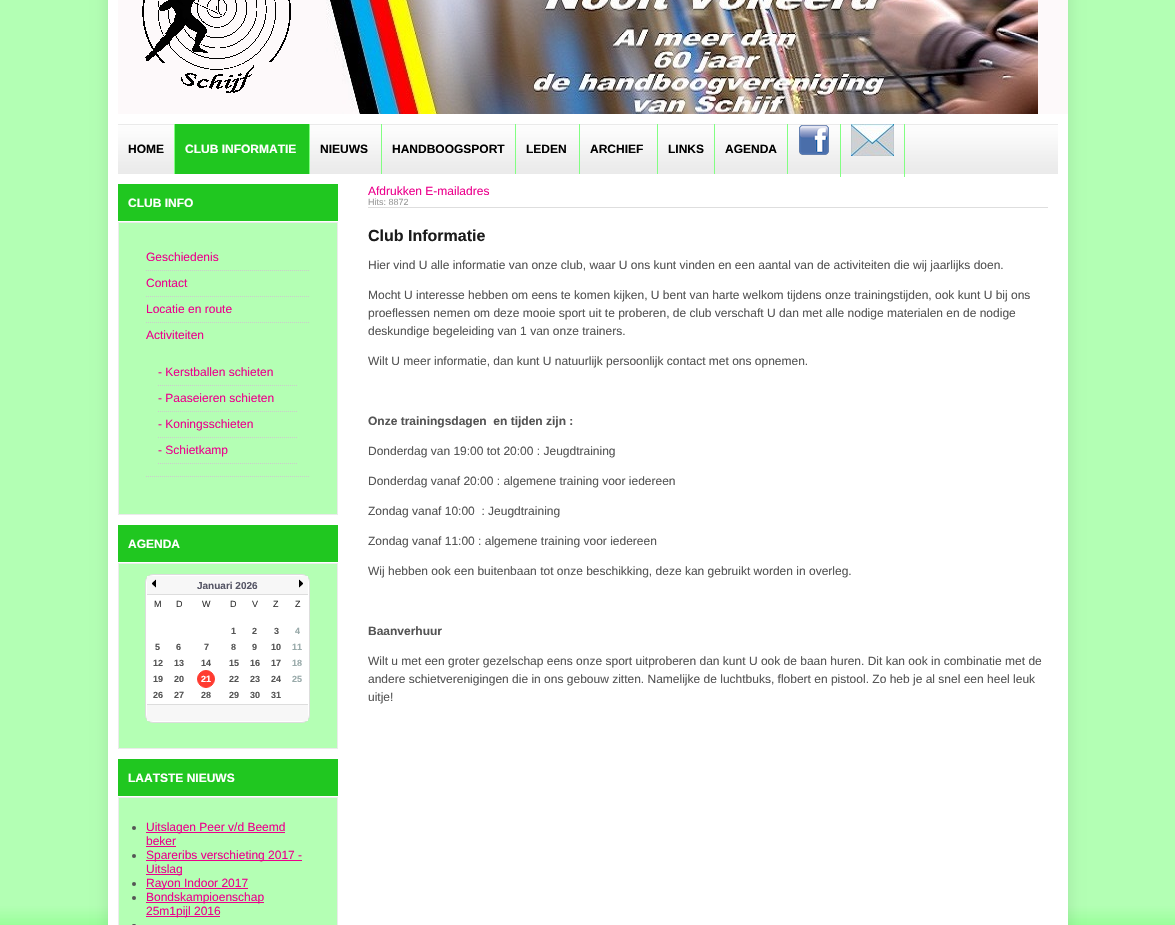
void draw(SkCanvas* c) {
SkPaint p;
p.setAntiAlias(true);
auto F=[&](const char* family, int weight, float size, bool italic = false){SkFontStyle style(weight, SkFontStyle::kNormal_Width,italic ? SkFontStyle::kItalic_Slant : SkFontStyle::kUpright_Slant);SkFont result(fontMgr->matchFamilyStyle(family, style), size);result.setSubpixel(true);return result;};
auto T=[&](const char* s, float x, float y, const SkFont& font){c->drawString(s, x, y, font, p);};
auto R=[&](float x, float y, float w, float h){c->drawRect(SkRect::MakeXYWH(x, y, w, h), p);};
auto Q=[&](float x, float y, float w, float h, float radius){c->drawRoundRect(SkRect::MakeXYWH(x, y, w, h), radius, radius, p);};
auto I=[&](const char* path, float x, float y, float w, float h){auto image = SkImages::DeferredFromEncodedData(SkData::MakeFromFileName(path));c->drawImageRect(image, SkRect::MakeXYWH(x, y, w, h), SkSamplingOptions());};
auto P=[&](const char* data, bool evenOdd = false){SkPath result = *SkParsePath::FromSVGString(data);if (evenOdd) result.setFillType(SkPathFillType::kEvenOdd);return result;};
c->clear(0xff85ff85);
I("1.png",0,0,1175,925);
p.setColor(0x1a000000);
p.setMaskFilter(SkMaskFilter::MakeBlur(kNormal_SkBlurStyle, 8));
c->drawRoundRect(SkRect::MakeXYWH(108,-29,960,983),5,5,p);
p.setMaskFilter(nullptr);
p.setColor(0xffffffff);
R(108,0,960,925);
I("2.png",118,0,950,114);
I("3.png",142,0,149,93);
I("4.png",118,124,940,50);
p.setColor(0xff82ff82);
R(174,124,1,50);
auto f1 = F("Liberation Sans",700,12);
p.setColor(0xff000000);
T("HOME",128,153,f1);
p.setColor(0xff20c720);
R(175,124,134,50);
p.setColor(0xff82ff82);
R(309,124,1,50);
p.setColor(0xffffffff);
T("CLUB INFORMATIE",185,153,f1);
p.setColor(0xff82ff82);
R(381,124,1,50);
p.setColor(0xff000000);
T("NIEUWS",320,153,f1);
p.setColor(0xff82ff82);
R(515,124,1,50);
p.setColor(0xff000000);
T("HANDBOOGSPORT",392,153,f1);
p.setColor(0xff82ff82);
R(579,124,1,50);
p.setColor(0xff000000);
T("LEDEN",526,153,f1);
p.setColor(0xff82ff82);
R(657,124,1,50);
p.setColor(0xff000000);
T("ARCHIEF",590,153,f1);
p.setColor(0xff82ff82);
R(714,124,1,50);
p.setColor(0xff000000);
T("LINKS",668,153,f1);
p.setColor(0xff82ff82);
R(787,124,1,50);
p.setColor(0xff000000);
T("AGENDA",725,153,f1);
p.setColor(0xff82ff82);
R(840,124,1,53);
I("5.png",799,125,30,30);
R(904,124,1,53);
I("6.png",851,124,43,32);
p.setColor(0xff20c720);
R(118,184,220,37);
p.setColor(0xffffffff);
T("CLUB INFO",128,207,f1);
p.setColor(0xffb4ffb4);
c->drawRect(SkRect::MakeXYWH(118.5,222.5,219,292),p);
p.setStroke(true);
p.setStrokeWidth(1);
p.setColor(0xffebebeb);
c->drawRect(SkRect::MakeXYWH(118.5,222.5,219,292),p);
p.setColor(0xffcccccc);
p.setPathEffect(SkDashPathEffect::Make({{1,1}}, 0));
c->drawPath(P("M146 270.5h164"),p);
p.setPathEffect(nullptr);
auto f2 = F("Liberation Sans",400,12);
p.setStroke(false);
p.setColor(0xffec008c);
T("Geschiedenis",146,261,f2);
p.setStroke(true);
p.setColor(0xffcccccc);
p.setPathEffect(SkDashPathEffect::Make({{1,1}}, 0));
c->drawPath(P("M146 296.5h164"),p);
p.setPathEffect(nullptr);
p.setStroke(false);
p.setColor(0xffec008c);
T("Contact",146,287,f2);
p.setStroke(true);
p.setColor(0xffcccccc);
p.setPathEffect(SkDashPathEffect::Make({{1,1}}, 0));
c->drawPath(P("M146 322.5h164"),p);
p.setPathEffect(nullptr);
p.setStroke(false);
p.setColor(0xffec008c);
T("Locatie en route",146,313,f2);
p.setStroke(true);
p.setColor(0xffcccccc);
p.setPathEffect(SkDashPathEffect::Make({{1,1}}, 0));
c->drawPath(P("M146 476.5h164"),p);
p.setPathEffect(nullptr);
p.setStroke(false);
p.setColor(0xffec008c);
T("Activiteiten",146,339,f2);
p.setStroke(true);
p.setColor(0xffcccccc);
p.setPathEffect(SkDashPathEffect::Make({{1,1}}, 0));
c->drawPath(P("M158 385.5h140"),p);
p.setPathEffect(nullptr);
p.setStroke(false);
p.setColor(0xffec008c);
T("- Kerstballen schieten",158,376,f2);
p.setStroke(true);
p.setColor(0xffcccccc);
p.setPathEffect(SkDashPathEffect::Make({{1,1}}, 0));
c->drawPath(P("M158 411.5h140"),p);
p.setPathEffect(nullptr);
p.setStroke(false);
p.setColor(0xffec008c);
T("- Paaseieren schieten",158,402,f2);
p.setStroke(true);
p.setColor(0xffcccccc);
p.setPathEffect(SkDashPathEffect::Make({{1,1}}, 0));
c->drawPath(P("M158 437.5h140"),p);
p.setPathEffect(nullptr);
p.setStroke(false);
p.setColor(0xffec008c);
T("- Koningsschieten",158,428,f2);
p.setStroke(true);
p.setColor(0xffcccccc);
p.setPathEffect(SkDashPathEffect::Make({{1,1}}, 0));
c->drawPath(P("M158 463.5h140"),p);
p.setPathEffect(nullptr);
p.setStroke(false);
p.setColor(0xffec008c);
T("- Schietkamp",158,454,f2);
p.setColor(0xff20c720);
R(118,525,220,37);
p.setColor(0xffffffff);
T("AGENDA",128,548,f1);
p.setColor(0xffb4ffb4);
c->drawRect(SkRect::MakeXYWH(118.5,563.5,219,185),p);
p.setStroke(true);
p.setColor(0xffebebeb);
c->drawRect(SkRect::MakeXYWH(118.5,563.5,219,185),p);
p.setStroke(false);
p.setColor(0xffffffff);
c->drawRoundRect(SkRect::MakeXYWH(145.5,574.5,164,148),7.5,7.5,p);
p.setStroke(true);
p.setColor(0xffdddddd);
c->drawRoundRect(SkRect::MakeXYWH(145.5,574.5,164,148),7.5,7.5,p);
p.setStroke(false);
p.setColor(0xfff7f7f7);
R(147,576,161,18);
p.setColor(0xffdddddd);
R(147,594,161,1);
I("7.png",152,579,4,9);
auto f3 = F("Liberation Sans",700,10);
p.setColor(0xff565666);
T("Januari 2026",197,589,f3);
I("8.png",299,579,4,9);
auto f4 = F("Liberation Sans",400,9);
p.setColor(0xff333333);
T("M",154,607,f4);
T("D",176,607,f4);
T("W",202,607,f4);
T("D",230,607,f4);
T("V",252,607,f4);
T("Z",273,607,f4);
T("Z",295,607,f4);
auto f5 = F("Liberation Sans",700,9);
p.setColor(0xff555555);
T("1",231,634,f5);
T("2",252,634,f5);
T("3",274,634,f5);
p.setColor(0xff99aaaa);
T("4",295,634,f5);
p.setColor(0xff555555);
T("5",155,650,f5);
T("6",176,650,f5);
T("7",204,650,f5);
T("8",231,650,f5);
T("9",252,650,f5);
T("10",271,650,f5);
p.setColor(0xff99aaaa);
T("11",292,650,f5);
p.setColor(0xff555555);
T("12",153,666,f5);
T("13",174,666,f5);
T("14",201,666,f5);
T("15",229,666,f5);
T("16",250,666,f5);
T("17",271,666,f5);
p.setColor(0xff99aaaa);
T("18",292,666,f5);
p.setColor(0xff555555);
T("19",153,682,f5);
T("20",174,682,f5);
p.setColor(0xffff3b30);
c->drawCircle(206,679,8.5,p);
p.setStroke(true);
c->drawCircle(206,679,8.5,p);
p.setStroke(false);
p.setColor(0xffffffff);
T("21",201,682,f5);
p.setColor(0xff555555);
T("22",229,682,f5);
T("23",250,682,f5);
T("24",271,682,f5);
p.setColor(0xff99aaaa);
T("25",292,682,f5);
p.setColor(0xff555555);
T("26",153,698,f5);
T("27",174,698,f5);
T("28",201,698,f5);
T("29",229,698,f5);
T("30",250,698,f5);
T("31",271,698,f5);
p.setColor(0xfff7f7f7);
R(147,705,161,16);
p.setColor(0xffdddddd);
R(147,704,161,1);
p.setColor(0xff20c720);
R(118,759,220,37);
p.setColor(0xffffffff);
T("LAATSTE NIEUWS",128,782,f1);
p.setColor(0xffb4ffb4);
c->drawRect(SkRect::MakeXYWH(118.5,797.5,219,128),p);
p.setStroke(true);
p.setColor(0xffebebeb);
c->drawRect(SkRect::MakeXYWH(118.5,797.5,219,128),p);
p.setStroke(false);
p.setColor(0xff555555);
c->drawCircle(134,828,2,p);
p.setColor(0xffec008c);
R(146,832,139,1);
T("Uitslagen Peer v/d Beemd",146,831,f2);
T("beker",146,845,f2);
R(146,846,30,1);
p.setColor(0xff555555);
c->drawCircle(134,856,2,p);
p.setColor(0xffec008c);
R(146,860,156,1);
T("Spareribs verschieting 2017 -",146,859,f2);
R(146,874,36,1);
T("Uitslag",146,873,f2);
p.setColor(0xff555555);
c->drawCircle(134,884,2,p);
p.setColor(0xffec008c);
R(146,888,102,1);
T("Rayon Indoor 2017",146,887,f2);
p.setColor(0xff555555);
c->drawCircle(134,898,2,p);
p.setColor(0xffec008c);
R(146,902,118,1);
T("Bondskampioenschap",146,901,f2);
R(146,916,74,1);
T("25m1pijl 2016",146,915,f2);
p.setColor(0xff555555);
Q(132,924,4,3,2);
p.setColor(0xffec008c);
T("Afdrukken E-mailadres",368,195,f2);
p.setColor(0xffdedede);
R(368,207,680,1);
p.setColor(0xff999999);
T("Hits: 8872",368,205,f4);
auto f6 = F("Liberation Sans",700,16);
p.setColor(0xff1b1b1b);
T("Club Informatie",368,241,f6);
p.setColor(0xff555555);
T("Hier vind U alle informatie van onze club, waar U ons kunt vinden en een aantal van de activiteiten die wij jaarlijks doen.",368,269,f2);
T("Mocht U interesse hebben om eens te komen kijken, U bent van harte welkom tijdens onze trainingstijden, ook kunt U bij ons",368,299,f2);
T("proeflessen nemen om deze mooie sport uit te proberen, de club verschaft U dan met alle nodige materialen en de nodige",368,317,f2);
T("deskundige begeleiding van 1 van onze trainers.",368,335,f2);
T("Wilt U meer informatie, dan kunt U natuurlijk persoonlijk contact met ons opnemen.",368,365,f2);
T("Onze trainingsdagen  en tijden zijn :",368,425,f1);
T("Donderdag van 19:00 tot 20:00 : Jeugdtraining",368,455,f2);
T("Donderdag vanaf 20:00 : algemene training voor iedereen",368,485,f2);
T("Zondag vanaf 10:00  : Jeugdtraining",368,515,f2);
T("Zondag vanaf 11:00 : algemene training voor iedereen",368,545,f2);
T("Wij hebben ook een buitenbaan tot onze beschikking, deze kan gebruikt worden in overleg.",368,575,f2);
T("Baanverhuur",368,635,f1);
T("Wilt u met een groter gezelschap eens onze sport uitproberen dan kunt U ook de baan huren. Dit kan ook in combinatie met de",368,665,f2);
T("andere schietverenigingen die in ons gebouw zitten. Namelijke de luchtbuks, flobert en pistool. Zo heb je al snel een heel leuk",368,683,f2);
T("uitje!",368,701,f2);
}
